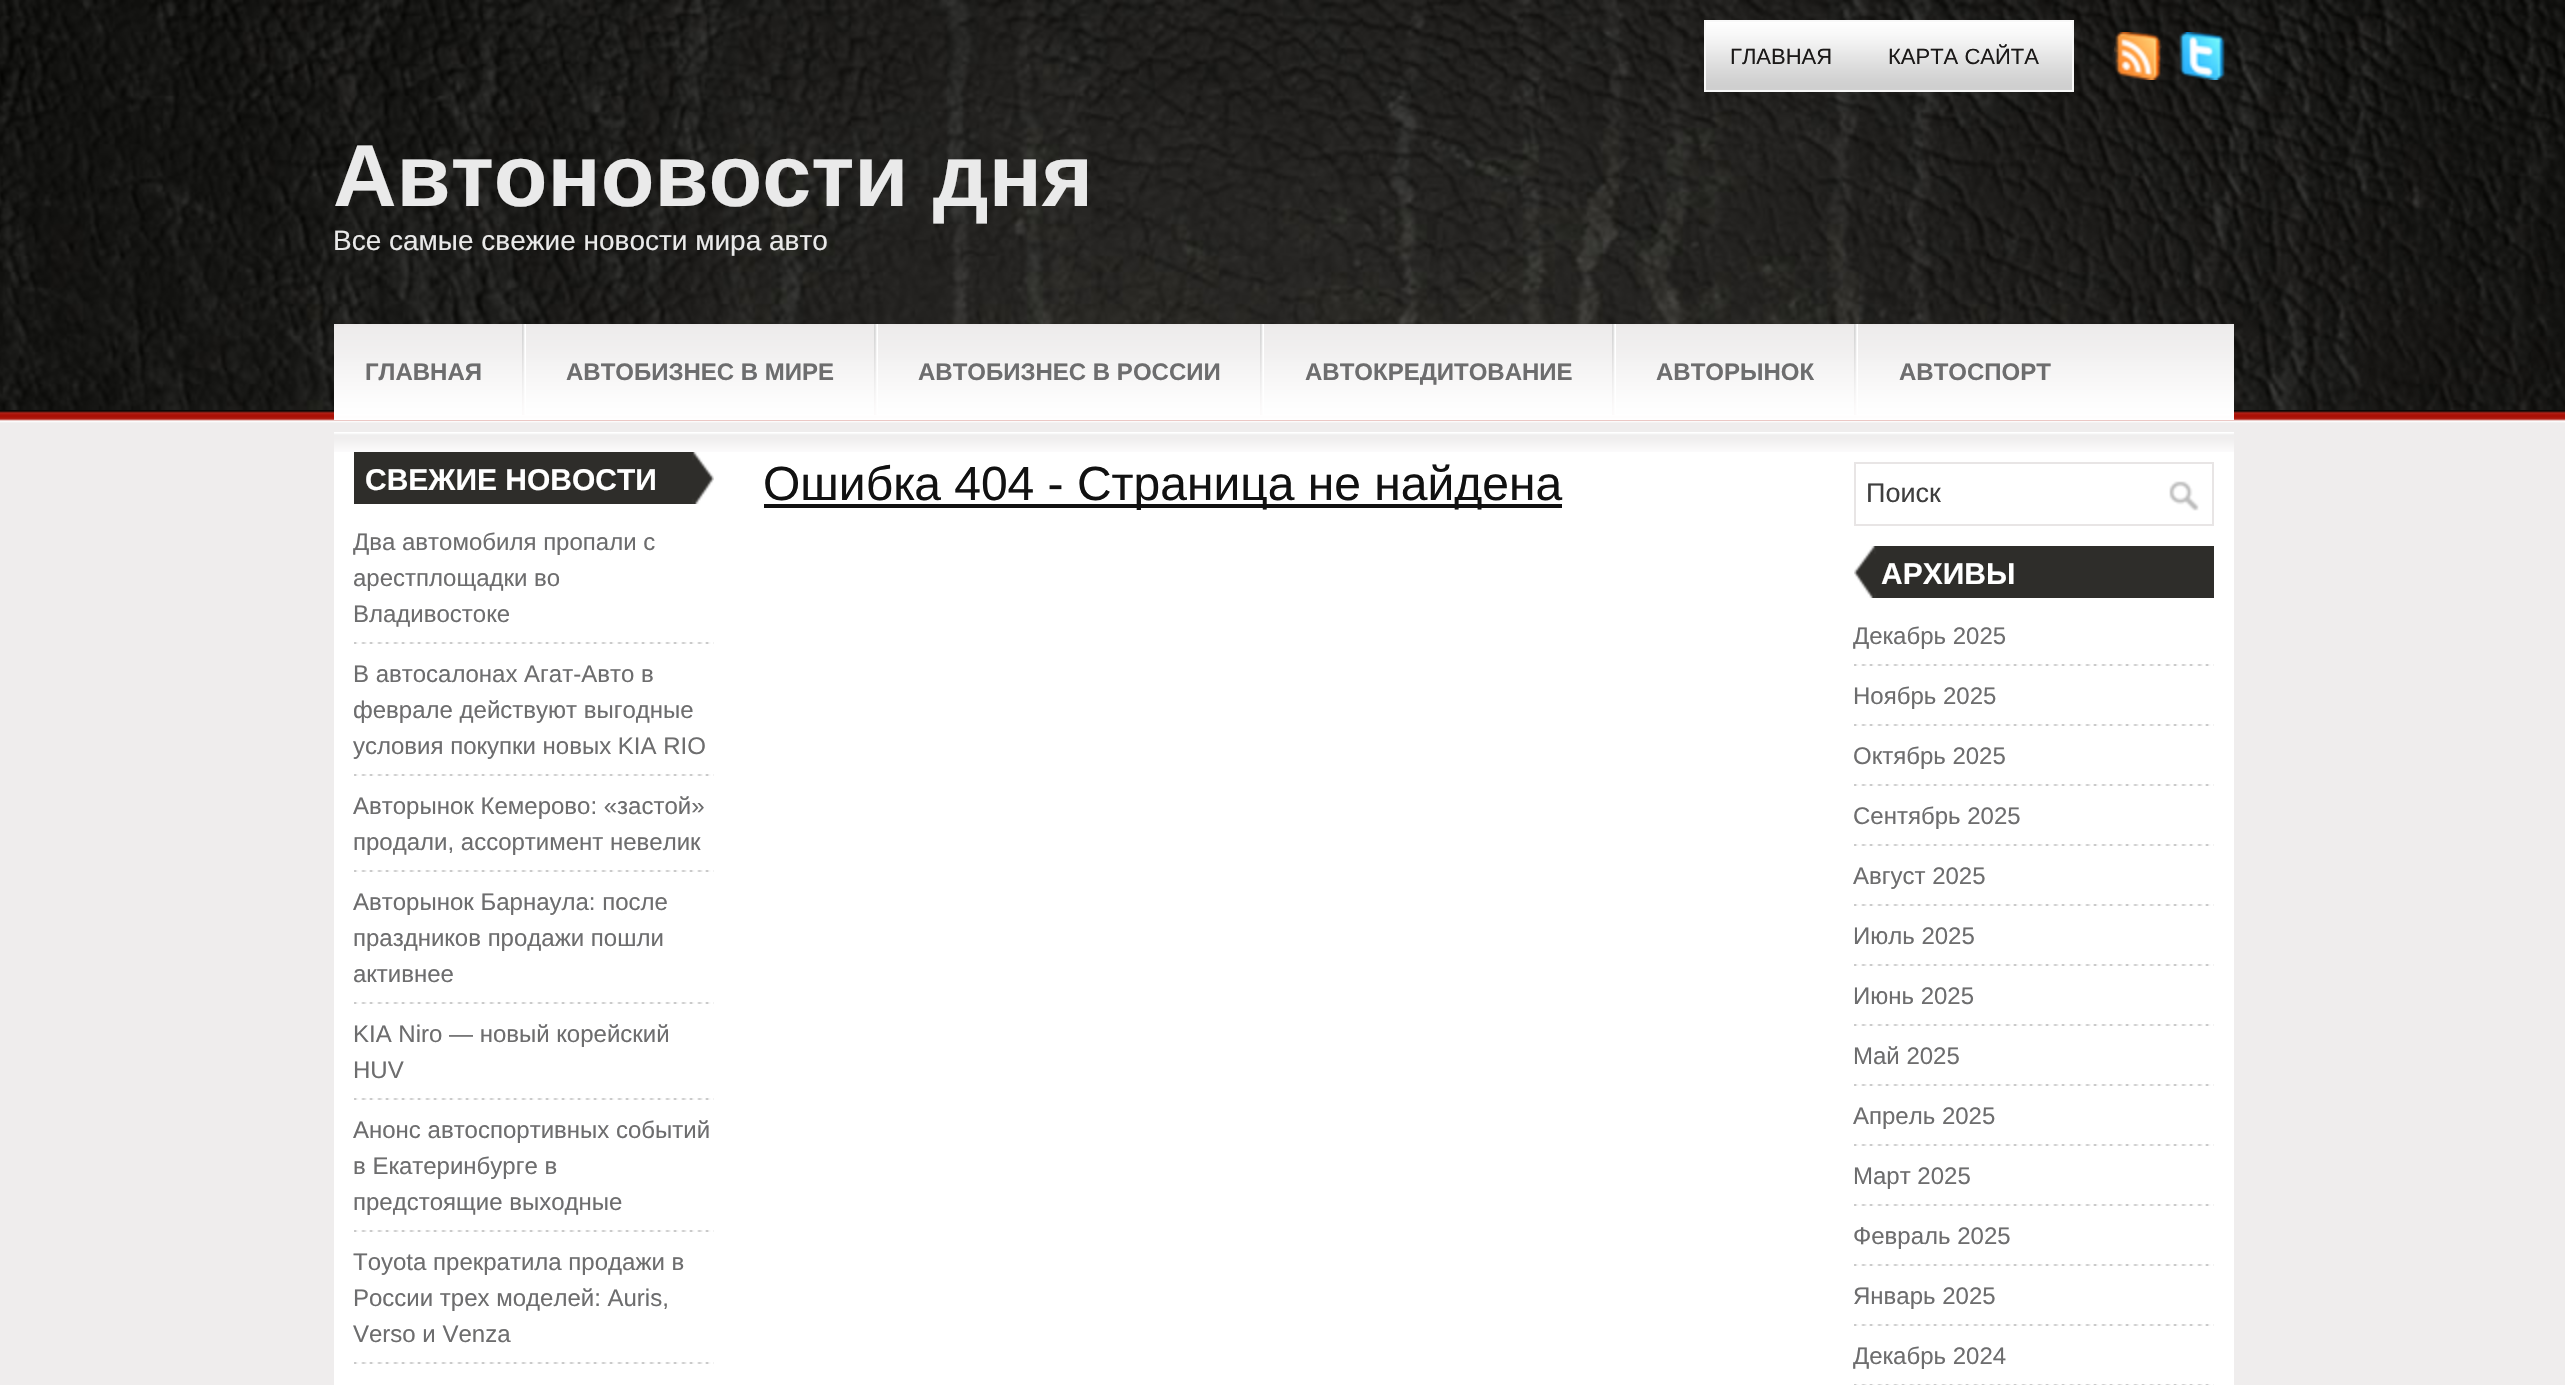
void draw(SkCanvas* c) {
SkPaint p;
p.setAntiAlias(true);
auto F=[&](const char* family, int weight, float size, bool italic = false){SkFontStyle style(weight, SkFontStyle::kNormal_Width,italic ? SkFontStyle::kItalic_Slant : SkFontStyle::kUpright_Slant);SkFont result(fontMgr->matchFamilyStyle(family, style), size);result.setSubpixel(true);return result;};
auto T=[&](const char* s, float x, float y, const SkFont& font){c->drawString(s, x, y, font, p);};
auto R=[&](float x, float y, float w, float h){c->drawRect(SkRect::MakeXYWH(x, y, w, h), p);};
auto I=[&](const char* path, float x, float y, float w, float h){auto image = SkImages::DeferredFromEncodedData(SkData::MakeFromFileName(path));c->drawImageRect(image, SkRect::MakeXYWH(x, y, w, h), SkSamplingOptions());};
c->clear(0xffefeded);
I("1.png",0,410,2565,13);
I("2.png",0,0,2565,410);
I("3.png",1706,22,366,68);
p.setStroke(true);
p.setStrokeWidth(2);
p.setColor(0xfff8f8f8);
c->drawRect(SkRect::MakeXYWH(1705,21,368,70),p);
auto f1 = F("Liberation Sans",400,22);
p.setStroke(false);
p.setColor(0xff1b1918);
T("ГЛАВНАЯ",1730,64,f1);
T("КАРТА САЙТА",1888,64,f1);
I("4.png",2114,32,48,48);
I("5.png",2179,32,46,48);
auto f2 = F("Liberation Sans",700,88);
p.setColor(0xffeaeaea);
T("Автоновости дня",333,206,f2);
auto f3 = F("Liberation Sans",400,28);
T("Все самые свежие новости мира авто",333,250,f3);
I("6.png",334,324,1900,96);
auto f4 = F("Liberation Sans",700,24);
p.setColor(0xff6d6d6e);
T("ГЛАВНАЯ",365,380,f4);
I("7.png",522,324,4,91);
T("АВТОБИЗНЕС В МИРЕ",566,380,f4);
I("7.png",874,324,4,91);
T("АВТОБИЗНЕС В РОССИИ",918,380,f4);
I("7.png",1260,324,4,91);
T("АВТОКРЕДИТОВАНИЕ",1305,380,f4);
I("7.png",1612,324,4,91);
T("АВТОРЫНОК",1656,380,f4);
I("7.png",1854,324,4,91);
T("АВТОСПОРТ",1899,380,f4);
p.setColor(0xffffffff);
R(334,432,1900,953);
I("8.png",334,433,1900,19);
I("9.png",354,452,360,52);
auto f5 = F("Liberation Sans",700,30);
T("СВЕЖИЕ НОВОСТИ",365,490,f5);
I("10.png",354,642,360,2);
auto f6 = F("Liberation Sans",400,24);
p.setColor(0xff6d6d6e);
T("Два автомобиля пропали с",353,550,f6);
T("арестплощадки во",353,586,f6);
T("Владивостоке",353,622,f6);
I("10.png",354,774,360,2);
T("В автосалонах Агат-Авто в",353,682,f6);
T("феврале действуют выгодные",353,718,f6);
T("условия покупки новых KIA RIO",353,754,f6);
I("10.png",354,870,360,2);
T("Авторынок Кемерово: «застой»",353,814,f6);
T("продали, ассортимент невелик",353,850,f6);
I("10.png",354,1002,360,2);
T("Авторынок Барнаула: после",353,910,f6);
T("праздников продажи пошли",353,946,f6);
T("активнее",353,982,f6);
I("10.png",354,1098,360,2);
T("KIA Niro — новый корейский",353,1042,f6);
T("HUV",353,1078,f6);
I("10.png",354,1230,360,2);
T("Анонс автоспортивных событий",353,1138,f6);
T("в Екатеринбурге в",353,1174,f6);
T("предстоящие выходные",353,1210,f6);
I("10.png",354,1362,360,2);
T("Toyota прекратила продажи в",353,1270,f6);
T("России трех моделей: Auris,",353,1306,f6);
T("Verso и Venza",353,1342,f6);
p.setColor(0xff111111);
R(764,504,798,4);
auto f7 = F("Liberation Sans",400,48);
T("Ошибка 404 - Страница не найдена",763,500,f7);
p.setStroke(true);
p.setColor(0xffe8e5e5);
c->drawRect(SkRect::MakeXYWH(1855,463,358,62),p);
auto f8 = F("Liberation Sans",400,27);
p.setStroke(false);
p.setColor(0xff3f3f3f);
T("Поиск",1866,502,f8);
I("11.png",2169,481,30,30);
I("12.png",1854,546,360,52);
p.setColor(0xffffffff);
T("АРХИВЫ",1881,584,f5);
I("10.png",1854,664,360,2);
p.setColor(0xff6d6d6e);
T("Декабрь 2025",1853,644,f6);
I("10.png",1854,724,360,2);
T("Ноябрь 2025",1853,704,f6);
I("10.png",1854,784,360,2);
T("Октябрь 2025",1853,764,f6);
I("10.png",1854,844,360,2);
T("Сентябрь 2025",1853,824,f6);
I("10.png",1854,904,360,2);
T("Август 2025",1853,884,f6);
I("10.png",1854,964,360,2);
T("Июль 2025",1853,944,f6);
I("10.png",1854,1024,360,2);
T("Июнь 2025",1853,1004,f6);
I("10.png",1854,1084,360,2);
T("Май 2025",1853,1064,f6);
I("10.png",1854,1144,360,2);
T("Апрель 2025",1853,1124,f6);
I("10.png",1854,1204,360,2);
T("Март 2025",1853,1184,f6);
I("10.png",1854,1264,360,2);
T("Февраль 2025",1853,1244,f6);
I("10.png",1854,1324,360,2);
T("Январь 2025",1853,1304,f6);
I("13.png",1854,1384,360,1);
T("Декабрь 2024",1853,1364,f6);
}
